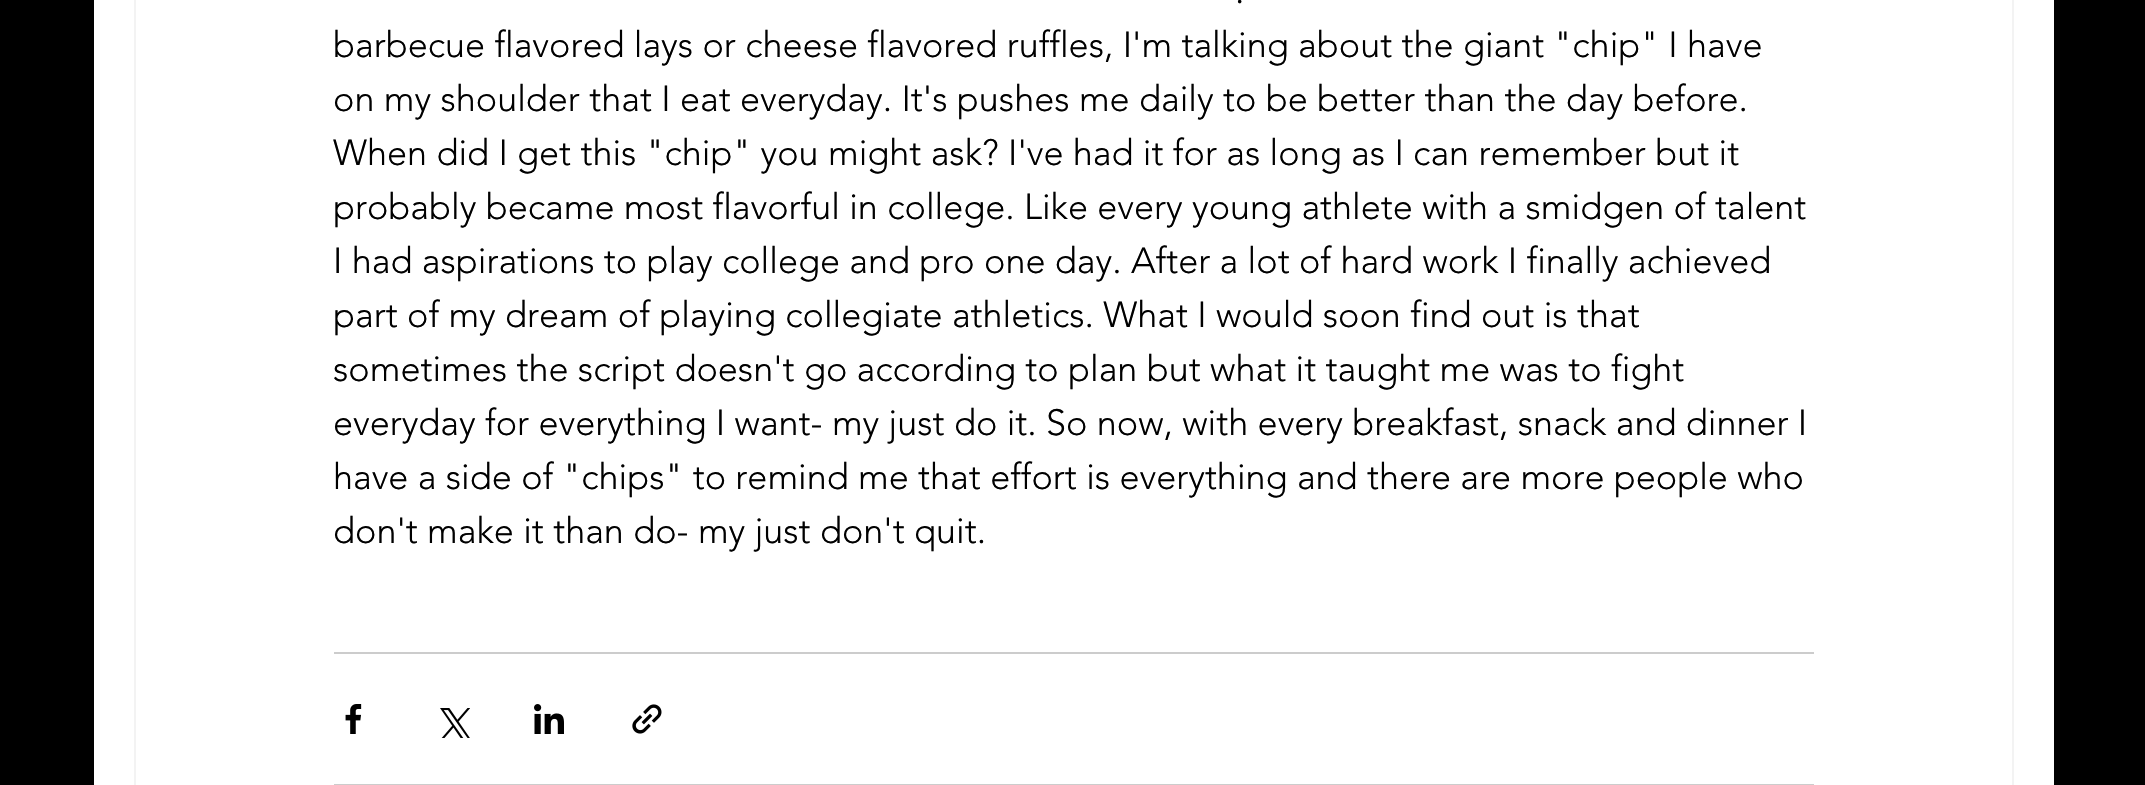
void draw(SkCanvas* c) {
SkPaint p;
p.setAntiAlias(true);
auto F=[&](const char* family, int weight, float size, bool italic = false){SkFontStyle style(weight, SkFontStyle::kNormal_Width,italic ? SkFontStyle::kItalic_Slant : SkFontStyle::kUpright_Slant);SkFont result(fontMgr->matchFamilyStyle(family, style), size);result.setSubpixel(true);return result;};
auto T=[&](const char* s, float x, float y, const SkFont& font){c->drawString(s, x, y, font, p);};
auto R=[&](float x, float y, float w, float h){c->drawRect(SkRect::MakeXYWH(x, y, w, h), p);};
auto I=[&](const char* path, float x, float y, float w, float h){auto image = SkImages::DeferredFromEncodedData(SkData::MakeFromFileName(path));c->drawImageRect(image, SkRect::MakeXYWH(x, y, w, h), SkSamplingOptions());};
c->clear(0xff000000);
p.setColor(0xffffffff);
R(94,0,1960,785);
p.setStroke(true);
p.setStrokeWidth(2);
p.setColor(0xfff3f3f3);
c->drawRect(SkRect::MakeXYWH(135,-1,1878,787),p);
auto f1 = F("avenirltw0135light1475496",300,36);
p.setStroke(false);
p.setColor(0xff000000);
T(".",1235,3,f1);
T("barbecue flavored lays or cheese flavored ruffles, I'm talking about the giant \"chip\" I have",333,57,f1);
T("on my shoulder that I eat everyday. It's pushes me daily to be better than the day before.",333,111,f1);
T("When did I get this \"chip\" you might ask? I've had it for as long as I can remember but it",333,165,f1);
T("probably became most flavorful in college. Like every young athlete with a smidgen of talent",333,219,f1);
T("I had aspirations to play college and pro one day. After a lot of hard work I finally achieved",333,273,f1);
T("part of my dream of playing collegiate athletics. What I would soon find out is that",333,327,f1);
T("sometimes the script doesn't go according to plan but what it taught me was to fight",333,381,f1);
T("everyday for everything I want- my just do it. So now, with every breakfast, snack and dinner I",333,435,f1);
T("have a side of \"chips\" to remind me that effort is everything and there are more people who",333,489,f1);
T("don't make it than do- my just don't quit.",333,543,f1);
p.setColor(0xffcccccc);
R(334,652,1480,2);
I("1.png",345,704,17,30);
I("2.png",440,708,30,30);
I("3.png",534,704,30,30);
I("4.png",632,704,30,30);
R(334,784,1480,1);
}
